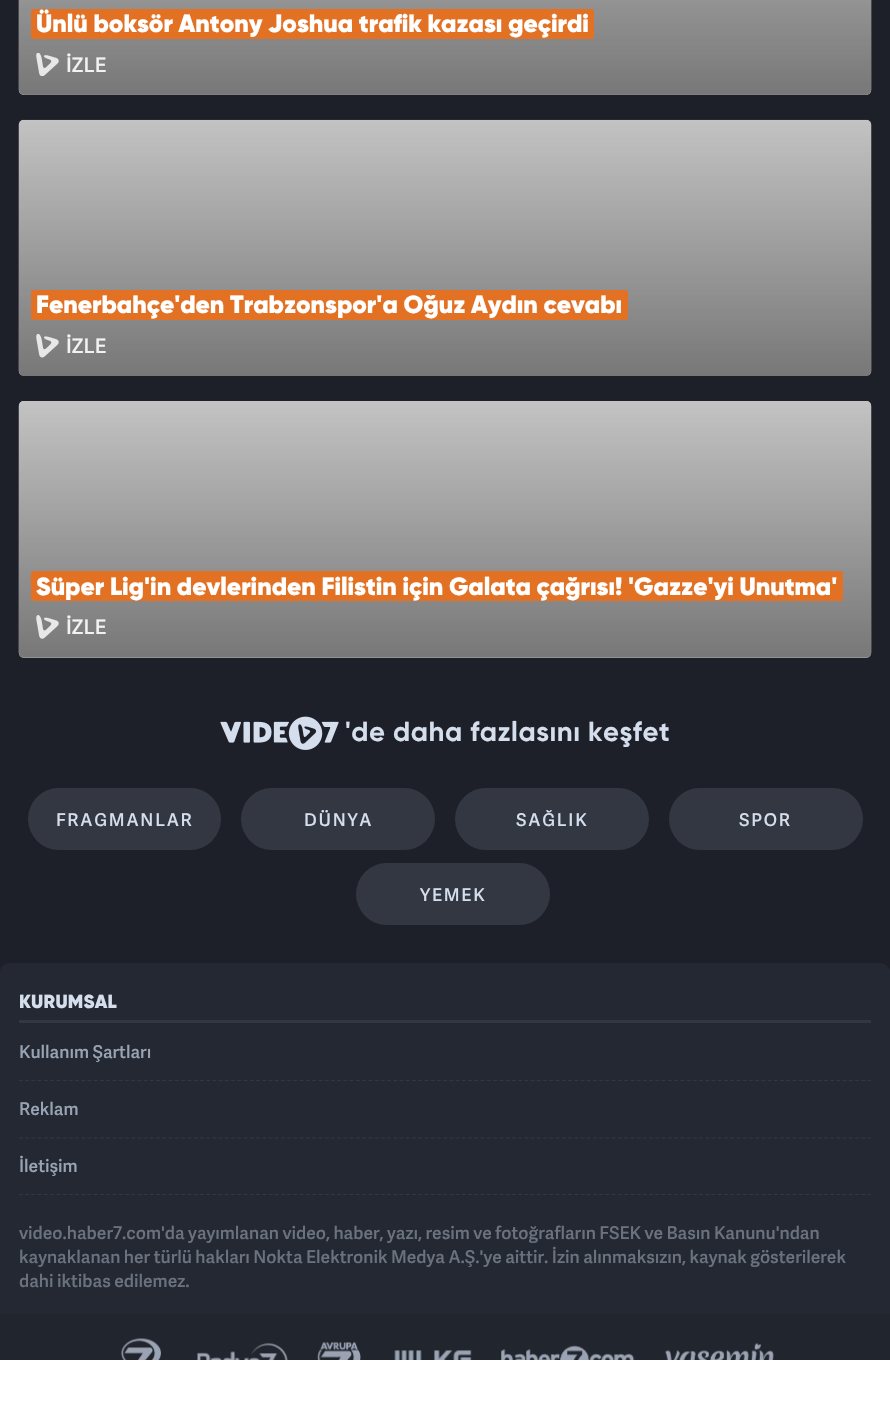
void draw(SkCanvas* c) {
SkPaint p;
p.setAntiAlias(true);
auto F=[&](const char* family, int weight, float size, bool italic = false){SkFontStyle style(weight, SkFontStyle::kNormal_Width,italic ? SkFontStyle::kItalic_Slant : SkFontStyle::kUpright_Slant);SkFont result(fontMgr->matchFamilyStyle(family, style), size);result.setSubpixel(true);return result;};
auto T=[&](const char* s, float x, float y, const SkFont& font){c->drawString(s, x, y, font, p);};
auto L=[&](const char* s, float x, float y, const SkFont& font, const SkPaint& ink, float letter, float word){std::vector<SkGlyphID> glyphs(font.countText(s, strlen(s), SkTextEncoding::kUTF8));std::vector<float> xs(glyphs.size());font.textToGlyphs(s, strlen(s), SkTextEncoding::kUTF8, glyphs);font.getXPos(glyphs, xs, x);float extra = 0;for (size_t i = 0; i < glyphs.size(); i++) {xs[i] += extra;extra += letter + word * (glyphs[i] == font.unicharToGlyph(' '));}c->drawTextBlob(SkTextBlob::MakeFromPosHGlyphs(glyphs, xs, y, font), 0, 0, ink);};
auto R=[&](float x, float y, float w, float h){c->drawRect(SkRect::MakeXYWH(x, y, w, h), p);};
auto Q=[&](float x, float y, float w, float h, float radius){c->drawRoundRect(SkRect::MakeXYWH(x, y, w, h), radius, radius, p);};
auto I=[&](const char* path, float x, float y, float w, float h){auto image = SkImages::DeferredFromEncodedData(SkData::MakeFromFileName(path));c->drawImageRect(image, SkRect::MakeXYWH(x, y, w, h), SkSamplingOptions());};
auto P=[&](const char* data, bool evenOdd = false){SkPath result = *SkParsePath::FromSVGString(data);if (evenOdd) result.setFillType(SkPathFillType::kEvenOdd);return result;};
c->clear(0xff1d2028);
p.setColor(0xffffffff);
Q(19,-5,852,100,5);
I("1.png",18,0,854,95);
{
const SkColor colors[] = {0x00000000,0x63000000};
const float stops[] = {0,1};
const SkPoint ends[] = {{445,-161}, {445,95}};
p.setShader(SkGradientShader::MakeLinear(ends, colors, stops, 2, SkTileMode::kClamp));
p.setAlpha(255);
}
Q(19,-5,852,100,5);
p.setShader(nullptr);
p.setColor(0xffe37124);
c->drawPath(P("M34 9c-4 0-3 5-3 7v16c0 2-1 6 2 7h555h-549c-2 0-3-1-3-3v-25c0-1 1-2 2-2z"),p);
Q(36,9,558,30,2.5);
auto f1 = F("Gilroy",900,25);
p.setColor(0xffffffff);
T("Ünlü boksör Antony Joshua trafik kazası geçirdi",36,32,f1);
I("2.png",36,53,23,23);
auto f2 = F("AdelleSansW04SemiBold",600,20);
p.setColor(0xfff2f2f2);
T("İZLE",66,72,f2);
I("3.png",18,119,854,257);
{
const SkColor colors[] = {0x00000000,0x63000000};
const float stops[] = {0,1};
const SkPoint ends[] = {{445,120}, {445,376}};
p.setShader(SkGradientShader::MakeLinear(ends, colors, stops, 2, SkTileMode::kClamp));
p.setAlpha(255);
}
Q(19,120,852,256,5);
p.setShader(nullptr);
p.setColor(0xffe37124);
c->drawPath(P("M33.5 290h5.5c-1.5 0-3 1-3 2.5v25c0 1.5 1.5 2.5 3 2.5h-5.5c-1.5 0-2.5-1-2.5-2.5v-25c0-1.5 1-2.5 2.5-2.5z"),p);
Q(36,290,592,30,2.5);
p.setColor(0xffffffff);
T("Fenerbahçe'den Trabzonspor'a Oğuz Aydın cevabı",36,313,f1);
I("4.png",36,334,23,24);
p.setColor(0xfff2f2f2);
T("İZLE",66,353,f2);
p.setColor(0xffffffff);
Q(19,401,852,257,5);
I("5.png",18,401,854,257);
{
const SkColor colors[] = {0x00000000,0x63000000};
const float stops[] = {0,1};
const SkPoint ends[] = {{445,401}, {445,658}};
p.setShader(SkGradientShader::MakeLinear(ends, colors, stops, 2, SkTileMode::kClamp));
p.setAlpha(255);
}
Q(19,401,852,257,5);
p.setShader(nullptr);
p.setColor(0xffe37124);
c->drawPath(P("M34 571h803h-798c-2 0-3 1-3 3v25c0 1 1 2 2 2c-9 0-7-2-7-11v-8c0-2-2-11 3-11z"),p);
Q(36,571,807,30,2.5);
p.setColor(0xffffffff);
T("Süper Lig'in devlerinden Filistin için Galata çağrısı! 'Gazze'yi Unutma'",36,595,f1);
I("6.png",36,615,23,24);
p.setColor(0xfff2f2f2);
T("İZLE",66,634,f2);
I("7.png",220,716,119,34);
auto f3 = F("Gilroy",700,27.5);
p.setColor(0xffd5deec);
L("'de daha fazlasını keşfet",345,741,f3,p,.55,0);
p.setColor(0xff323742);
Q(28,788,193,62,31);
auto f4 = F("AdelleSansW04SemiBold",600,17.5);
p.setColor(0xffd5deec);
L("FRAGMANLAR",56,826,f4,p,1.75,0);
p.setColor(0xff323742);
Q(241,788,194,62,31);
p.setColor(0xffd5deec);
L("DÜNYA",304,826,f4,p,1.75,0);
p.setColor(0xff323742);
Q(455,788,194,62,31);
p.setColor(0xffd5deec);
L("SAĞLIK",516,826,f4,p,1.75,0);
p.setColor(0xff323742);
Q(669,788,194,62,31);
p.setColor(0xffd5deec);
L("SPOR",739,826,f4,p,1.75,0);
p.setColor(0xff323742);
Q(356,863,194,62,31);
p.setColor(0xffd5deec);
L("YEMEK",420,901,f4,p,1.75,0);
p.setColor(0xff242832);
c->drawPath(P("M10 963h870c5.5 0 10 4.5 10 10v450h-890v-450c0-5.5 4.5-10 10-10z"),p);
p.setColor(0xff323742);
R(19,1020,852,3);
auto f5 = F("Gilroy",900,18.75);
p.setColor(0xffd5deec);
L("KURUMSAL",19,1008,f5,p,.25,0);
p.setStroke(true);
p.setStrokeWidth(1.2);
p.setColor(0xff323742);
p.setPathEffect(SkDashPathEffect::Make({{3.75f,2.49f}}, 0));
c->drawPath(P("M19 1080.5h852"),p);
p.setPathEffect(nullptr);
p.setStroke(false);
p.setColor(0xff98a3b4);
T("Kullanım Şartları",19,1058,f4);
p.setStroke(true);
p.setColor(0xff323742);
p.setPathEffect(SkDashPathEffect::Make({{3.75f,2.49f}}, 0));
c->drawPath(P("M19 1138h852"),p);
p.setPathEffect(nullptr);
p.setStroke(false);
p.setColor(0xff98a3b4);
T("Reklam",19,1115,f4);
p.setStroke(true);
p.setColor(0xff323742);
p.setPathEffect(SkDashPathEffect::Make({{3.75f,2.49f}}, 0));
c->drawPath(P("M19 1194.5h852"),p);
p.setPathEffect(nullptr);
p.setStroke(false);
p.setColor(0xff98a3b4);
T("İletişim",19,1172,f4);
p.setColor(0xff6a7280);
T("video.haber7.com'da yayımlanan video, haber, yazı, resim ve fotoğrafların FSEK ve Basın Kanunu'ndan",19,1239,f4);
T("kaynaklanan her türlü hakları Nokta Elektronik Medya A.Ş.'ye aittir. İzin alınmaksızın, kaynak gösterilerek",19,1263,f4);
T("dahi iktibas edilemez.",19,1287,f4);
p.setColor(0xff21252e);
R(0,1314,890,46);
I("8.png",121,1338,40,22);
I("9.png",197,1343,91,17);
I("10.png",317,1342,44,18);
I("11.png",394,1350,78,10);
I("12.png",501,1345,134,15);
I("13.png",665,1343,109,17);
p.setColor(0xffffffff);
R(0,1360,890,62);
}
